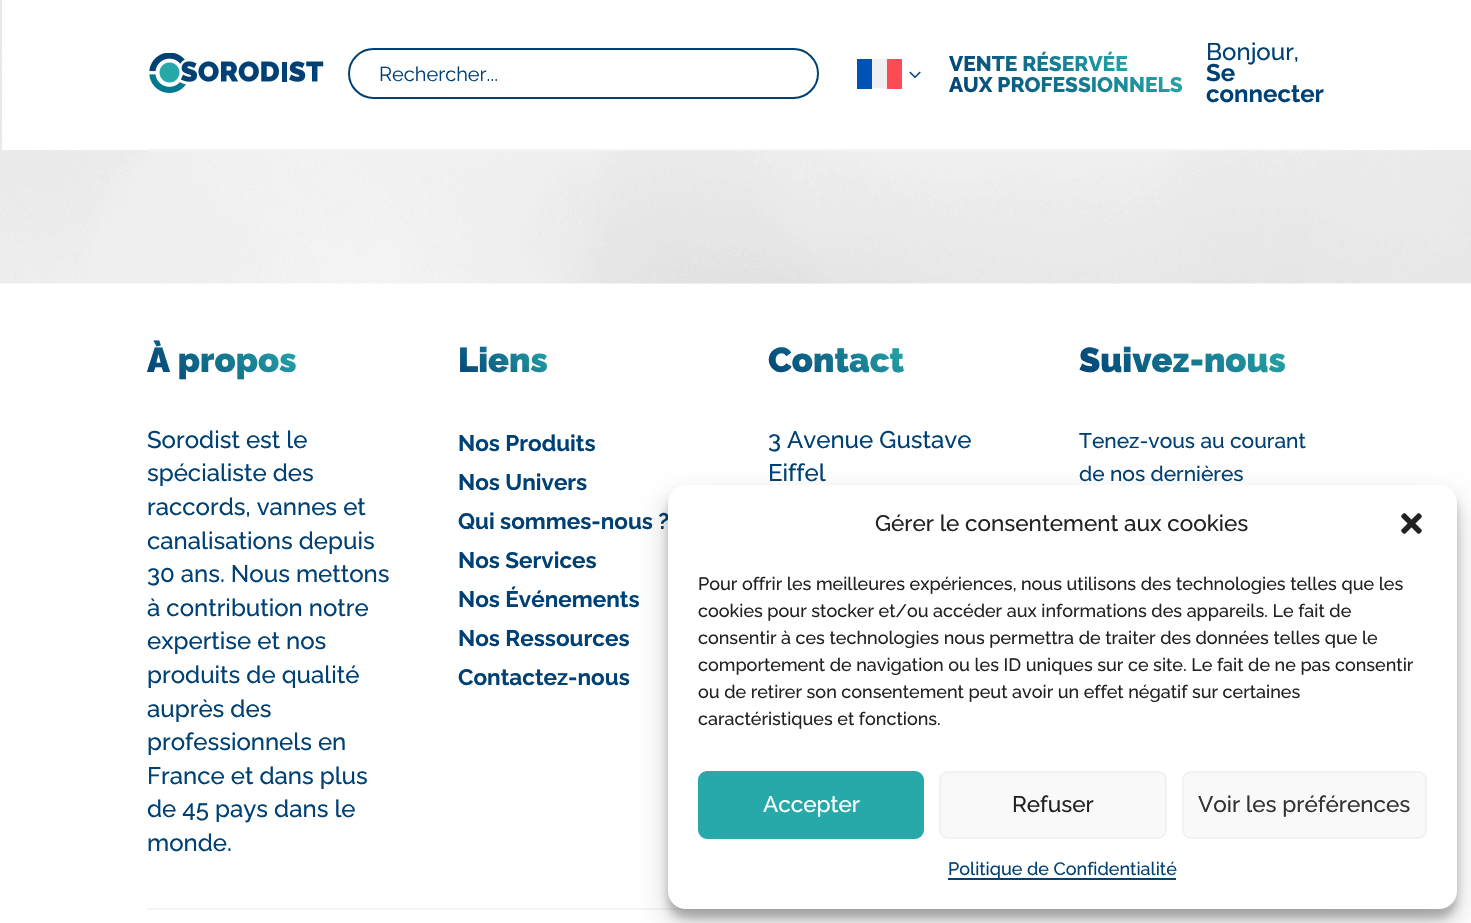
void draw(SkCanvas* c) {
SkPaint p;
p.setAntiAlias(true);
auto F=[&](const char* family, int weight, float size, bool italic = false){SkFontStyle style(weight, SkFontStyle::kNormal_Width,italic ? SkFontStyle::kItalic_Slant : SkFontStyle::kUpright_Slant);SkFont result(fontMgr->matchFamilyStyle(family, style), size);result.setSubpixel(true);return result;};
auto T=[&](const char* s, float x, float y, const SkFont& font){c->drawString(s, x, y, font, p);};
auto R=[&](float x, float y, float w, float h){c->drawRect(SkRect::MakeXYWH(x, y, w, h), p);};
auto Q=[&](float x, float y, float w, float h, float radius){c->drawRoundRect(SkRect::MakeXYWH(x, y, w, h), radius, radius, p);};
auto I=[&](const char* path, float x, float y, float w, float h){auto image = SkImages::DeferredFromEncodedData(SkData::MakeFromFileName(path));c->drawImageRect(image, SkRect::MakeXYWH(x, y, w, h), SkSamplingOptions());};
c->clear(0xffffffff);
I("3.png",0,0,1471,284);
p.setColor(0xffffffff);
R(2,0,1469,150);
p.setColor(0xfff4f4f4);
R(149,149,1176,2);
I("1.png",149,53,175,40);
p.setStroke(true);
p.setStrokeWidth(2);
p.setColor(0xff004175);
c->drawRoundRect(SkRect::MakeXYWH(349,49,469,49),24.5,24.5,p);
auto f1 = F("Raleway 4",100,20);
p.setStroke(false);
T("Rechercher...",379,81,f1);
p.setColor(0xff0052b4);
R(857,59,15,30);
p.setColor(0xfff0f0f0);
R(872,59,15,29);
p.setColor(0xffff4b55);
R(887,59,15,30);
I("2.png",909,71,12,7);
auto f2 = F("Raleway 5",100,21);
{
const SkColor colors[] = {0xff004175,0xff28a9a9};
const float stops[] = {0,1};
const SkPoint ends[] = {{988,114}, {1089,13}};
p.setShader(SkGradientShader::MakeLinear(ends, colors, stops, 2, SkTileMode::kClamp));
p.setAlpha(255);
}
T("VENTE RÉSERVÉE",949,71,f2);
{
const SkColor colors[] = {0xff004175,0xff28a9a9};
const float stops[] = {0,1};
const SkPoint ends[] = {{1002,149}, {1131,20}};
p.setShader(SkGradientShader::MakeLinear(ends, colors, stops, 2, SkTileMode::kClamp));
p.setAlpha(255);
}
T("AUX PROFESSIONNELS",949,92,f2);
auto f3 = F("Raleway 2",100,24);
p.setShader(nullptr);
p.setColor(0xff004175);
T("Bonjour,",1206,60,f3);
auto f4 = F("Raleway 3",100,24);
T("Se",1206,81,f4);
T("connecter",1206,102,f4);
p.setColor(0xfff4f4f4);
R(147,908,1178,2);
auto f5 = F("Raleway",100,34.5);
{
const SkColor colors[] = {0xff004175,0xff28a9a9};
const float stops[] = {0,1};
const SkPoint ends[] = {{174,407}, {269,312}};
p.setShader(SkGradientShader::MakeLinear(ends, colors, stops, 2, SkTileMode::kClamp));
p.setAlpha(255);
}
T("À propos",147,372,f5);
p.setShader(nullptr);
p.setColor(0xff004175);
T("Sorodist est le",147,448,f3);
T("spécialiste des",147,481,f3);
T("raccords, vannes et",147,515,f3);
T("canalisations depuis",147,549,f3);
T("30 ans. Nous mettons",147,582,f3);
T("à contribution notre",147,616,f3);
T("expertise et nos",147,649,f3);
T("produits de qualité",147,683,f3);
T("auprès des",147,717,f3);
T("professionnels en",147,750,f3);
T("France et dans plus",147,784,f3);
T("de 45 pays dans le",147,817,f3);
T("monde.",147,851,f3);
{
const SkColor colors[] = {0xff004175,0xff28a9a9};
const float stops[] = {0,1};
const SkPoint ends[] = {{470,392}, {535,327}};
p.setShader(SkGradientShader::MakeLinear(ends, colors, stops, 2, SkTileMode::kClamp));
p.setAlpha(255);
}
T("Liens",458,372,f5);
auto f6 = F("Raleway 3",100,22.5);
p.setShader(nullptr);
p.setColor(0xff004175);
T("Nos Produits",458,451,f6);
T("Nos Univers",458,490,f6);
T("Qui sommes-nous ?",458,529,f6);
T("Nos Services",458,568,f6);
T("Nos Événements",458,607,f6);
T("Nos Ressources",458,646,f6);
T("Contactez-nous",458,685,f6);
{
const SkColor colors[] = {0xff004175,0xff28a9a9};
const float stops[] = {0,1};
const SkPoint ends[] = {{792,403}, {880,315}};
p.setShader(SkGradientShader::MakeLinear(ends, colors, stops, 2, SkTileMode::kClamp));
p.setAlpha(255);
}
T("Contact",768,372,f5);
p.setShader(nullptr);
p.setColor(0xff004175);
T("3 Avenue Gustave",768,448,f3);
T("Eiffel",768,481,f3);
{
const SkColor colors[] = {0xff004175,0xff28a9a9};
const float stops[] = {0,1};
const SkPoint ends[] = {{1120,421}, {1244,297}};
p.setShader(SkGradientShader::MakeLinear(ends, colors, stops, 2, SkTileMode::kClamp));
p.setAlpha(255);
}
T("Suivez-nous",1079,372,f5);
auto f7 = F("Raleway 2",100,21);
p.setShader(nullptr);
p.setColor(0xff004175);
T("Tenez-vous au courant",1079,448,f7);
T("de nos dernières",1079,481,f7);
p.setColor(0x3b000000);
p.setMaskFilter(SkMaskFilter::MakeBlur(kNormal_SkBlurStyle, 4.5));
c->drawRoundRect(SkRect::MakeXYWH(668,494,789,424),18,18,p);
p.setMaskFilter(nullptr);
p.setColor(0x30000000);
p.setMaskFilter(SkMaskFilter::MakeBlur(kNormal_SkBlurStyle, 15));
c->drawRoundRect(SkRect::MakeXYWH(668,500,789,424),18,18,p);
p.setMaskFilter(nullptr);
p.setColor(0xffffffff);
Q(668,485,789,424,18);
auto f8 = F("Raleway 2",100,22.5);
p.setColor(0xff222222);
T("Gérer le consentement aux cookies",875,531,f8);
I("4.png",1401,513,21,21);
auto f9 = F("Raleway 2",100,18);
T("Pour offrir les meilleures expériences, nous utilisons des technologies telles que les",698,590,f9);
T("cookies pour stocker et/ou accéder aux informations des appareils. Le fait de",698,617,f9);
T("consentir à ces technologies nous permettra de traiter des données telles que le",698,644,f9);
T("comportement de navigation ou les ID uniques sur ce site. Le fait de ne pas consentir",698,671,f9);
T("ou de retirer son consentement peut avoir un effet négatif sur certaines",698,698,f9);
T("caractéristiques et fonctions.",698,725,f9);
p.setColor(0xff28a9a9);
c->drawRoundRect(SkRect::MakeXYWH(699,772,224,66),8,8,p);
p.setStroke(true);
c->drawRoundRect(SkRect::MakeXYWH(699,772,224,66),8,8,p);
p.setStroke(false);
p.setColor(0xffffffff);
T("Accepter",763,812,f8);
p.setColor(0xfff9f9f9);
c->drawRoundRect(SkRect::MakeXYWH(940,772,226,66),8,8,p);
p.setStroke(true);
p.setColor(0xfff2f2f2);
c->drawRoundRect(SkRect::MakeXYWH(940,772,226,66),8,8,p);
p.setStroke(false);
p.setColor(0xff222222);
T("Refuser",1012,812,f8);
p.setColor(0xfff9f9f9);
c->drawRoundRect(SkRect::MakeXYWH(1183,772,243,66),8,8,p);
p.setStroke(true);
p.setColor(0xfff2f2f2);
c->drawRoundRect(SkRect::MakeXYWH(1183,772,243,66),8,8,p);
p.setStroke(false);
p.setColor(0xff333333);
T("Voir les préférences",1198,812,f8);
p.setColor(0xff004175);
R(948,878,228,2);
T("Politique de Confidentialité",948,875,f9);
}
